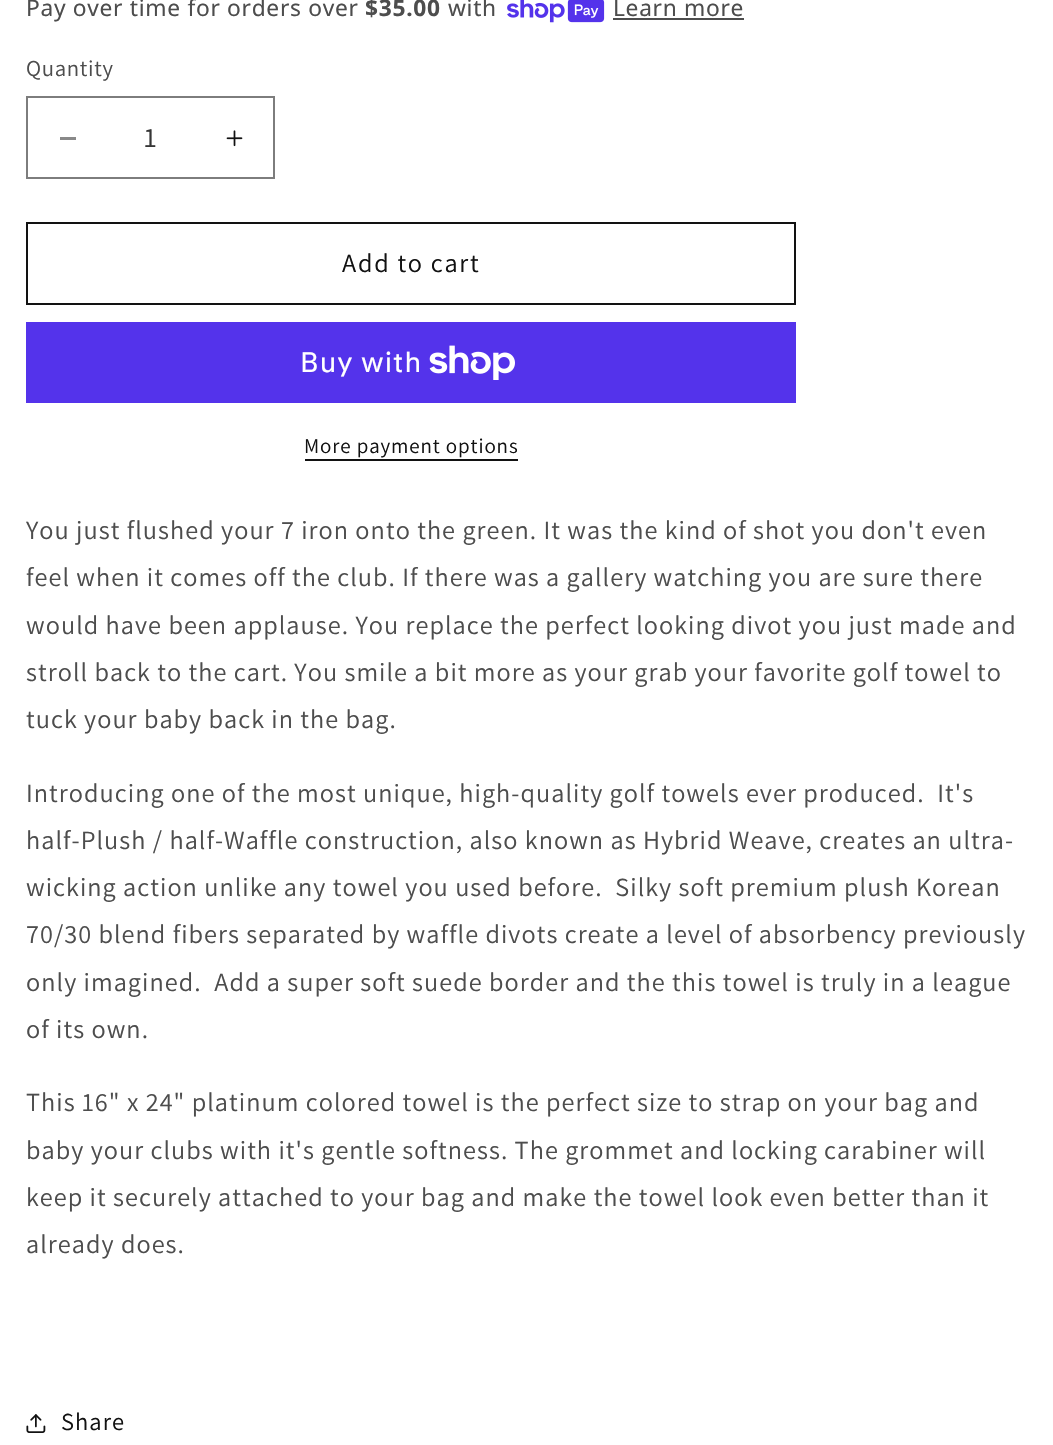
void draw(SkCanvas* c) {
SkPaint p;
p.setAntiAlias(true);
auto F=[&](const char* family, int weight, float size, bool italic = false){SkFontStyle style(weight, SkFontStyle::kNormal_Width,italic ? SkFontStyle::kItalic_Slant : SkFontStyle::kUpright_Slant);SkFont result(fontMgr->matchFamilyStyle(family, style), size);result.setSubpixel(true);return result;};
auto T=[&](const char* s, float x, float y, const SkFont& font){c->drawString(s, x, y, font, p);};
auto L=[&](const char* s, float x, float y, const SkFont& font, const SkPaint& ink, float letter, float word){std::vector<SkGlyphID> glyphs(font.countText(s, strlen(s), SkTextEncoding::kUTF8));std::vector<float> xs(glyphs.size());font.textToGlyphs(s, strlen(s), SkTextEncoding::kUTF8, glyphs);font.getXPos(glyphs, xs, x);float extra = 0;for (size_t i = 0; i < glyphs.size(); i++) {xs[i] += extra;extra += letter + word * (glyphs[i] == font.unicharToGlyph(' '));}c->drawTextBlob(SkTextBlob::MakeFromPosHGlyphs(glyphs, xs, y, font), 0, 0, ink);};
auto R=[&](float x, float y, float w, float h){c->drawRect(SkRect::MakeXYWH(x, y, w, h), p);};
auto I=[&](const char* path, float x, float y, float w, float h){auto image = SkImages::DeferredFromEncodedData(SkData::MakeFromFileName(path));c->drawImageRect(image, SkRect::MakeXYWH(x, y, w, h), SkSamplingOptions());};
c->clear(0xffffffff);
auto f1 = F("Noto Sans",400,22.75);
p.setColor(0xff4d4d4d);
L("Pay over time for orders over",26,16,f1,p,.7,0);
auto f2 = F("Noto Sans",700,22.75);
L("$35.00",365,16,f2,p,.7,0);
L("with",448,16,f1,p,.7,0);
I("1.png",507,0,98,23);
L("Learn more",613,16,f1,p,.7,0);
R(613,18,131,2);
auto f3 = F("Assistant",400,22.75);
L("Quantity",26,76,f3,p,.7,0);
p.setColor(0xff898989);
R(60,137,16,3);
I("2.png",226,130,17,17);
p.setStroke(true);
p.setStrokeWidth(2);
p.setColor(0xff7d7d7d);
c->drawRect(SkRect::MakeXYWH(27,97,247,81),p);
auto f4 = F("Assistant",400,28);
p.setStroke(false);
p.setColor(0xff363636);
T("1",144,147,f4);
p.setStroke(true);
p.setColor(0xff121212);
c->drawRect(SkRect::MakeXYWH(27,223,768,81),p);
auto f5 = F("Assistant",400,26.25);
p.setStroke(false);
L("Add to cart",342,272,f5,p,1.75,0);
p.setColor(0xff5433eb);
R(26,322,770,81);
auto f6 = F("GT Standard",400,28);
p.setColor(0xffffffff);
L("Buy with",300,372,f6,p,1.05,0);
I("3.png",429,345,86,35);
auto f7 = F("Assistant",400,21);
p.setColor(0xff121212);
L("More payment options",304,453,f7,p,.9,0);
R(305,459,213,2);
p.setColor(0xff4d4d4d);
L("You just flushed your 7 iron onto the green. It was the kind of shot you don't even",26,539,f5,p,1.05,0);
L("feel when it comes off the club. If there was a gallery watching you are sure there",26,586,f5,p,1.05,0);
L("would have been applause. You replace the perfect looking divot you just made and",26,634,f5,p,1.05,0);
L("stroll back to the cart. You smile a bit more as your grab your favorite golf towel to",26,681,f5,p,1.05,0);
L("tuck your baby back in the bag.",26,728,f5,p,1.05,0);
L("Introducing one of the most unique, high-quality golf towels ever produced.  It's",26,802,f5,p,1.05,0);
L("half-Plush / half-Waffle construction, also known as Hybrid Weave, creates an ultra-",26,849,f5,p,1.05,0);
L("wicking action unlike any towel you used before.  Silky soft premium plush Korean",26,896,f5,p,1.05,0);
L("70/30 blend fibers separated by waffle divots create a level of absorbency previously",26,943,f5,p,1.05,0);
L("only imagined.  Add a super soft suede border and the this towel is truly in a league",26,991,f5,p,1.05,0);
L("of its own.",26,1038,f5,p,1.05,0);
L("This 16\" x 24\" platinum colored towel is the perfect size to strap on your bag and",26,1111,f5,p,1.05,0);
L("baby your clubs with it's gentle softness. The grommet and locking carabiner will",26,1159,f5,p,1.05,0);
L("keep it securely attached to your bag and make the towel look even better than it",26,1206,f5,p,1.05,0);
L("already does.",26,1253,f5,p,1.05,0);
I("4.png",26,1414,20,19);
auto f8 = F("Assistant",400,24.5);
p.setColor(0xff121212);
L("Share",61,1430,f8,p,1.05,0);
}
